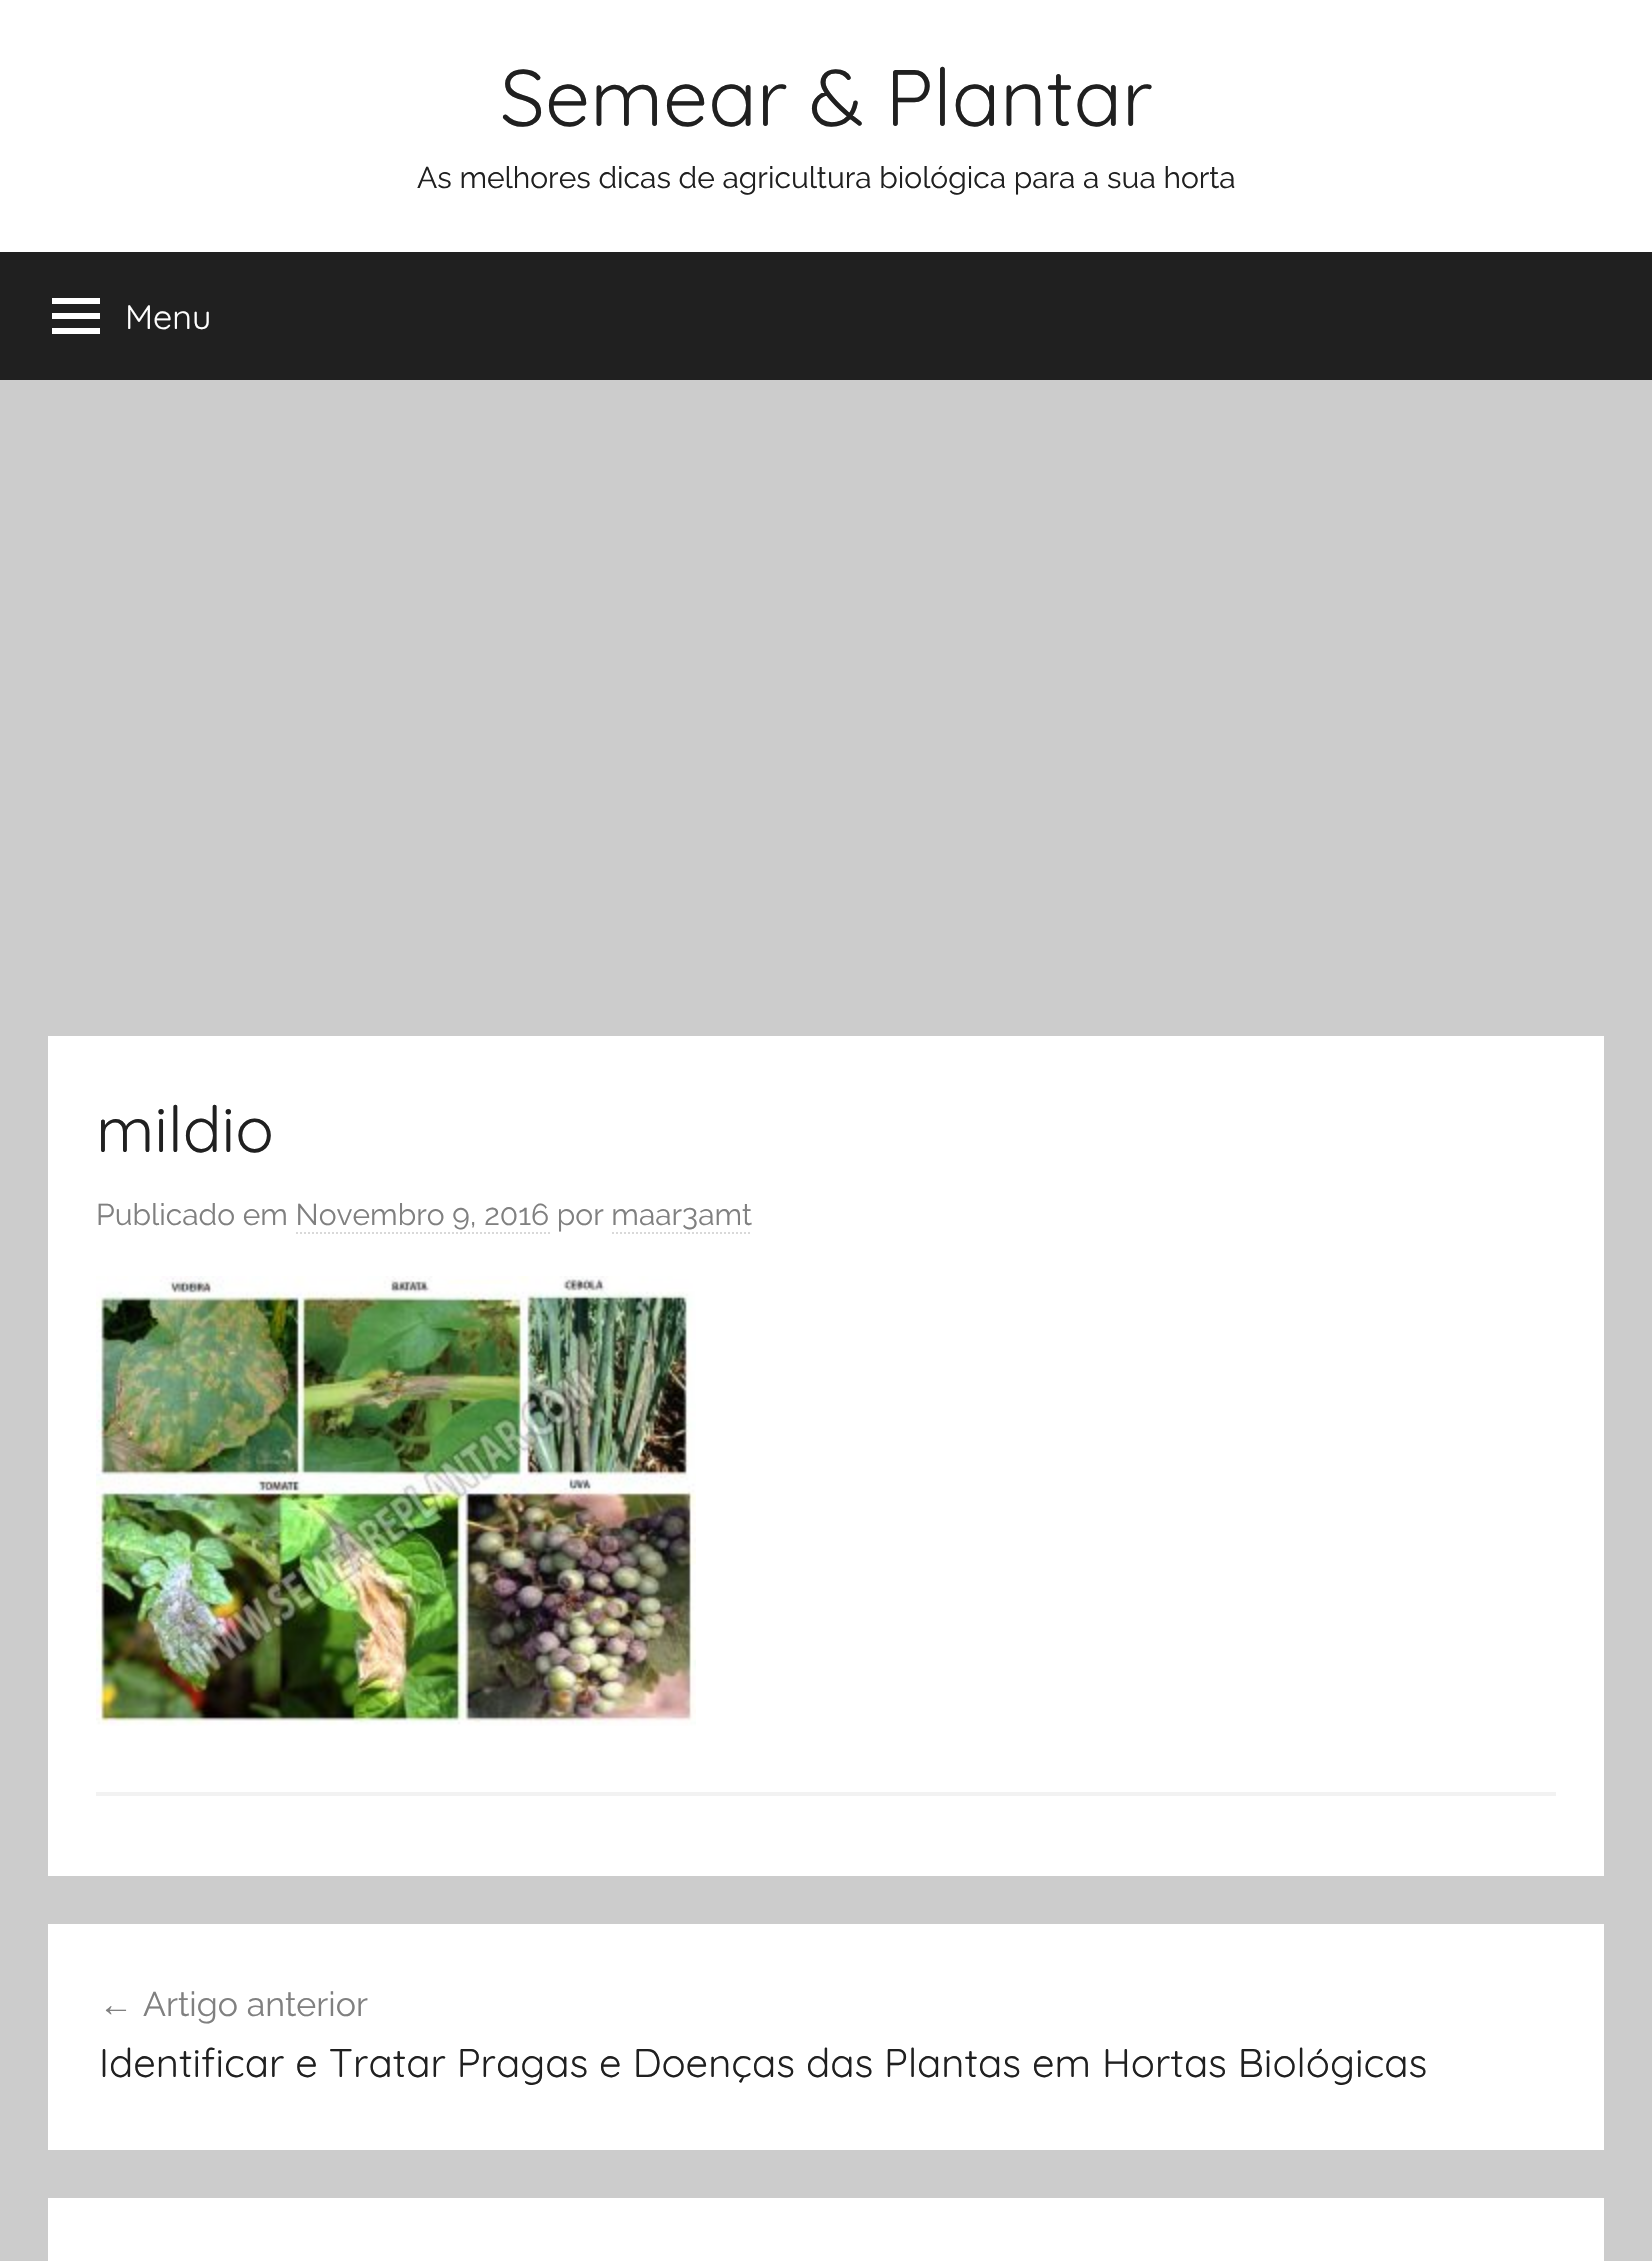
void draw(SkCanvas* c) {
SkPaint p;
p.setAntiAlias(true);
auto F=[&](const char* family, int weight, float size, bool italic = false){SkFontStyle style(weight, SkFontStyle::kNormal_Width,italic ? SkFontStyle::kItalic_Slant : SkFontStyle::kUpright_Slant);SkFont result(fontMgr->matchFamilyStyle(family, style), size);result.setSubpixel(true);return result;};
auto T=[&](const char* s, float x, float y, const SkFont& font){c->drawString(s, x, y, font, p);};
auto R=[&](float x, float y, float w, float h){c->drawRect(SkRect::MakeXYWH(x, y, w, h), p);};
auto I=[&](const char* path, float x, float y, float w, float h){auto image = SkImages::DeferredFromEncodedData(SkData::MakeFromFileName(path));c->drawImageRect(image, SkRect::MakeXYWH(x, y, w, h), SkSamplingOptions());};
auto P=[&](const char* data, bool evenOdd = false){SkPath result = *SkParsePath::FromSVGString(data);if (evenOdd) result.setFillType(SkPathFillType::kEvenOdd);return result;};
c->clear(0xffcccccc);
p.setColor(0xffffffff);
R(0,0,1652,252);
auto f1 = F("Quicksand",400,80);
p.setColor(0xff202020);
T("Semear & Plantar",500,126,f1);
auto f2 = F("Raleway",400,30);
T("As melhores dicas de agricultura biológica para a sua horta",417,188,f2);
R(0,252,1652,128);
I("1.png",52,298,48,36);
auto f3 = F("Quicksand",400,34);
p.setColor(0xffffffff);
T("Menu",125,329,f3);
R(48,1036,1556,840);
auto f4 = F("Quicksand",400,64);
p.setColor(0xff202020);
T("mildio",96,1152,f4);
p.setColor(0xff808080);
T("Publicado em Novembro 9, 2016 por maar3amt",96,1225,f2);
p.setStroke(true);
p.setStrokeWidth(2);
p.setColor(0xffd9d9d9);
p.setPathEffect(SkDashPathEffect::Make({{2,2}}, 0));
c->drawPath(P("M296 1233h254"),p);
p.setPathEffect(nullptr);
p.setPathEffect(SkDashPathEffect::Make({{2,2}}, 0));
c->drawPath(P("M612 1233h140"),p);
p.setPathEffect(nullptr);
I("2.png",96,1276,600,450);
p.setStroke(false);
p.setColor(0xfff2f2f2);
R(96,1792,1460,4);
p.setColor(0xffffffff);
R(48,1924,1556,226);
auto f5 = F("Liberation Sans",400,34);
p.setColor(0xff808080);
T("←",99,2016,f5);
auto f6 = F("Raleway",400,34);
T("Artigo anterior",143,2016,f6);
auto f7 = F("Quicksand",400,40);
p.setColor(0xff202020);
T("Identificar e Tratar Pragas e Doenças das Plantas em Hortas Biológicas",99,2077,f7);
p.setColor(0xffffffff);
R(48,2198,1556,63);
}
